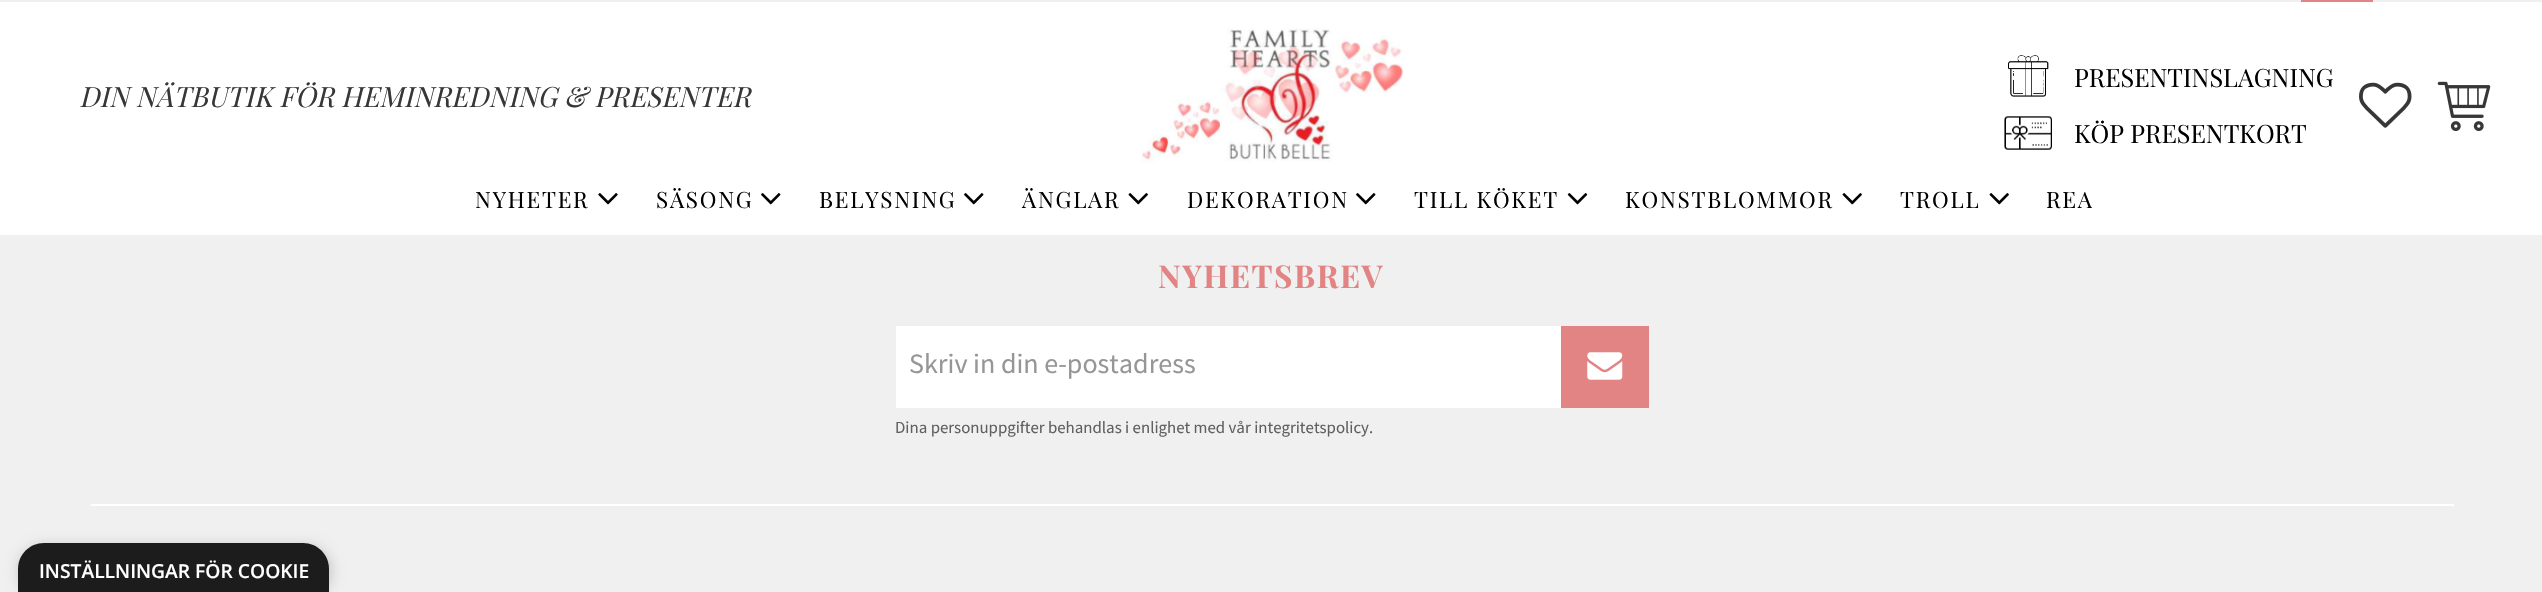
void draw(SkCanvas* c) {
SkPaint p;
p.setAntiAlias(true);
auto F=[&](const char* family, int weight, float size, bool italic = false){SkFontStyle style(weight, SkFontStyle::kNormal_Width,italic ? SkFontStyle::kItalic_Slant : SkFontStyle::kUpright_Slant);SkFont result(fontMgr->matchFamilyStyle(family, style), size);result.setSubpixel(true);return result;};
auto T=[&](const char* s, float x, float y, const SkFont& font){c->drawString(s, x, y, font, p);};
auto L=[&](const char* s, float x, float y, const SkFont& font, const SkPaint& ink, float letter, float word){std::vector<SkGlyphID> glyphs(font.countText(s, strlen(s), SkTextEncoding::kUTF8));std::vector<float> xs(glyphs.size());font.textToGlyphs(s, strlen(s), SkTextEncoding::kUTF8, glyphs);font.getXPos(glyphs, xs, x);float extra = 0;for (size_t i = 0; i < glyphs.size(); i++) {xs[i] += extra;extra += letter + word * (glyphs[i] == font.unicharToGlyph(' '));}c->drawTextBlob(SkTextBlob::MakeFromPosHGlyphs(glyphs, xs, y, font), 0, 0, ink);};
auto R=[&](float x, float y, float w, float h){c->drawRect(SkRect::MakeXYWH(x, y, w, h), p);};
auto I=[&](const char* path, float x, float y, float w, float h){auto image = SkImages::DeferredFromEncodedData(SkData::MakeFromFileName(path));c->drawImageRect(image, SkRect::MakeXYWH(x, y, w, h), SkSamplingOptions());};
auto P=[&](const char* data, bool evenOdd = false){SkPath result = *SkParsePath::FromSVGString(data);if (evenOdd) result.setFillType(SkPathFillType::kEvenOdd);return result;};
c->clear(0xfff0f0f0);
p.setColor(0xffffffff);
R(0,2,2542,233);
p.setColor(0xffe28484);
R(2301,0,72,2);
auto f1 = F("Playfair Display",400,28,true);
p.setColor(0xff373737);
T("DIN NÄTBUTIK FÖR HEMINREDNING & PRESENTER",79,107,f1);
auto f2 = F("Playfair Display",400,22.5);
p.setColor(0xff000000);
L("NYHETER",475,208,f2,p,1.75,0);
I("1.png",598,193,20,12);
L("SÄSONG",656,208,f2,p,1.75,0);
I("2.png",761,193,20,12);
L("BELYSNING",819,208,f2,p,1.75,0);
I("2.png",964,193,20,12);
L("ÄNGLAR",1022,208,f2,p,1.75,0);
I("3.png",1128,193,20,12);
L("DEKORATION",1187,208,f2,p,1.75,0);
I("2.png",1356,193,20,12);
L("TILL KÖKET",1414,208,f2,p,1.75,0);
I("4.png",1567,193,21,12);
L("KONSTBLOMMOR",1625,208,f2,p,1.75,0);
I("3.png",1842,193,20,12);
L("TROLL",1900,208,f2,p,1.75,0);
I("3.png",1989,193,20,12);
L("REA",2046,208,f2,p,1.75,0);
I("5.png",1141,28,263,135);
I("6.png",2008,55,41,42);
auto f3 = F("Playfair Display",400,25.25);
T("PRESENTINSLAGNING",2074,87,f3);
I("7.png",2004,116,48,34);
T("KÖP PRESENTKORT",2074,143,f3);
I("8.png",2359,82,53,46);
I("9.png",2437,81,54,50);
p.setColor(0xffffffff);
R(91,504,2363,2);
auto f4 = F("Playfair Display",700,31.5);
p.setColor(0xffe28484);
L("NYHETSBREV",1158,288,f4,p,1.5,0);
p.setColor(0xffffffff);
R(896,326,665,82);
auto f5 = F("Source Sans Pro",400,28);
p.setColor(0xff969696);
T("Skriv in din e-postadress",909,373,f5);
p.setColor(0xffe28484);
R(1561,326,88,82);
I("10.png",1587,352,36,28);
auto f6 = F("Source Sans Pro",400,16.8);
p.setColor(0xff606060);
T("Dina personuppgifter behandlas i enlighet med vår integritetspolicy.",895,433,f6);
p.setColor(0x33000000);
p.setMaskFilter(SkMaskFilter::MakeBlur(kNormal_SkBlurStyle, 7));
c->drawRoundRect(SkRect::MakeXYWH(19,546,312,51),26,26,p);
p.setMaskFilter(nullptr);
p.setColor(0xff1c1c1c);
c->drawPath(P("M44 543h259c14.5 0 26 11.5 26 26v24h-311v-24c0-14.5 11.5-26 26-26z"),p);
auto f7 = F("Open Sans",600,19.25);
p.setColor(0xffffffff);
T("INSTÄLLNINGAR FÖR COOKIE",39,578,f7);
}
